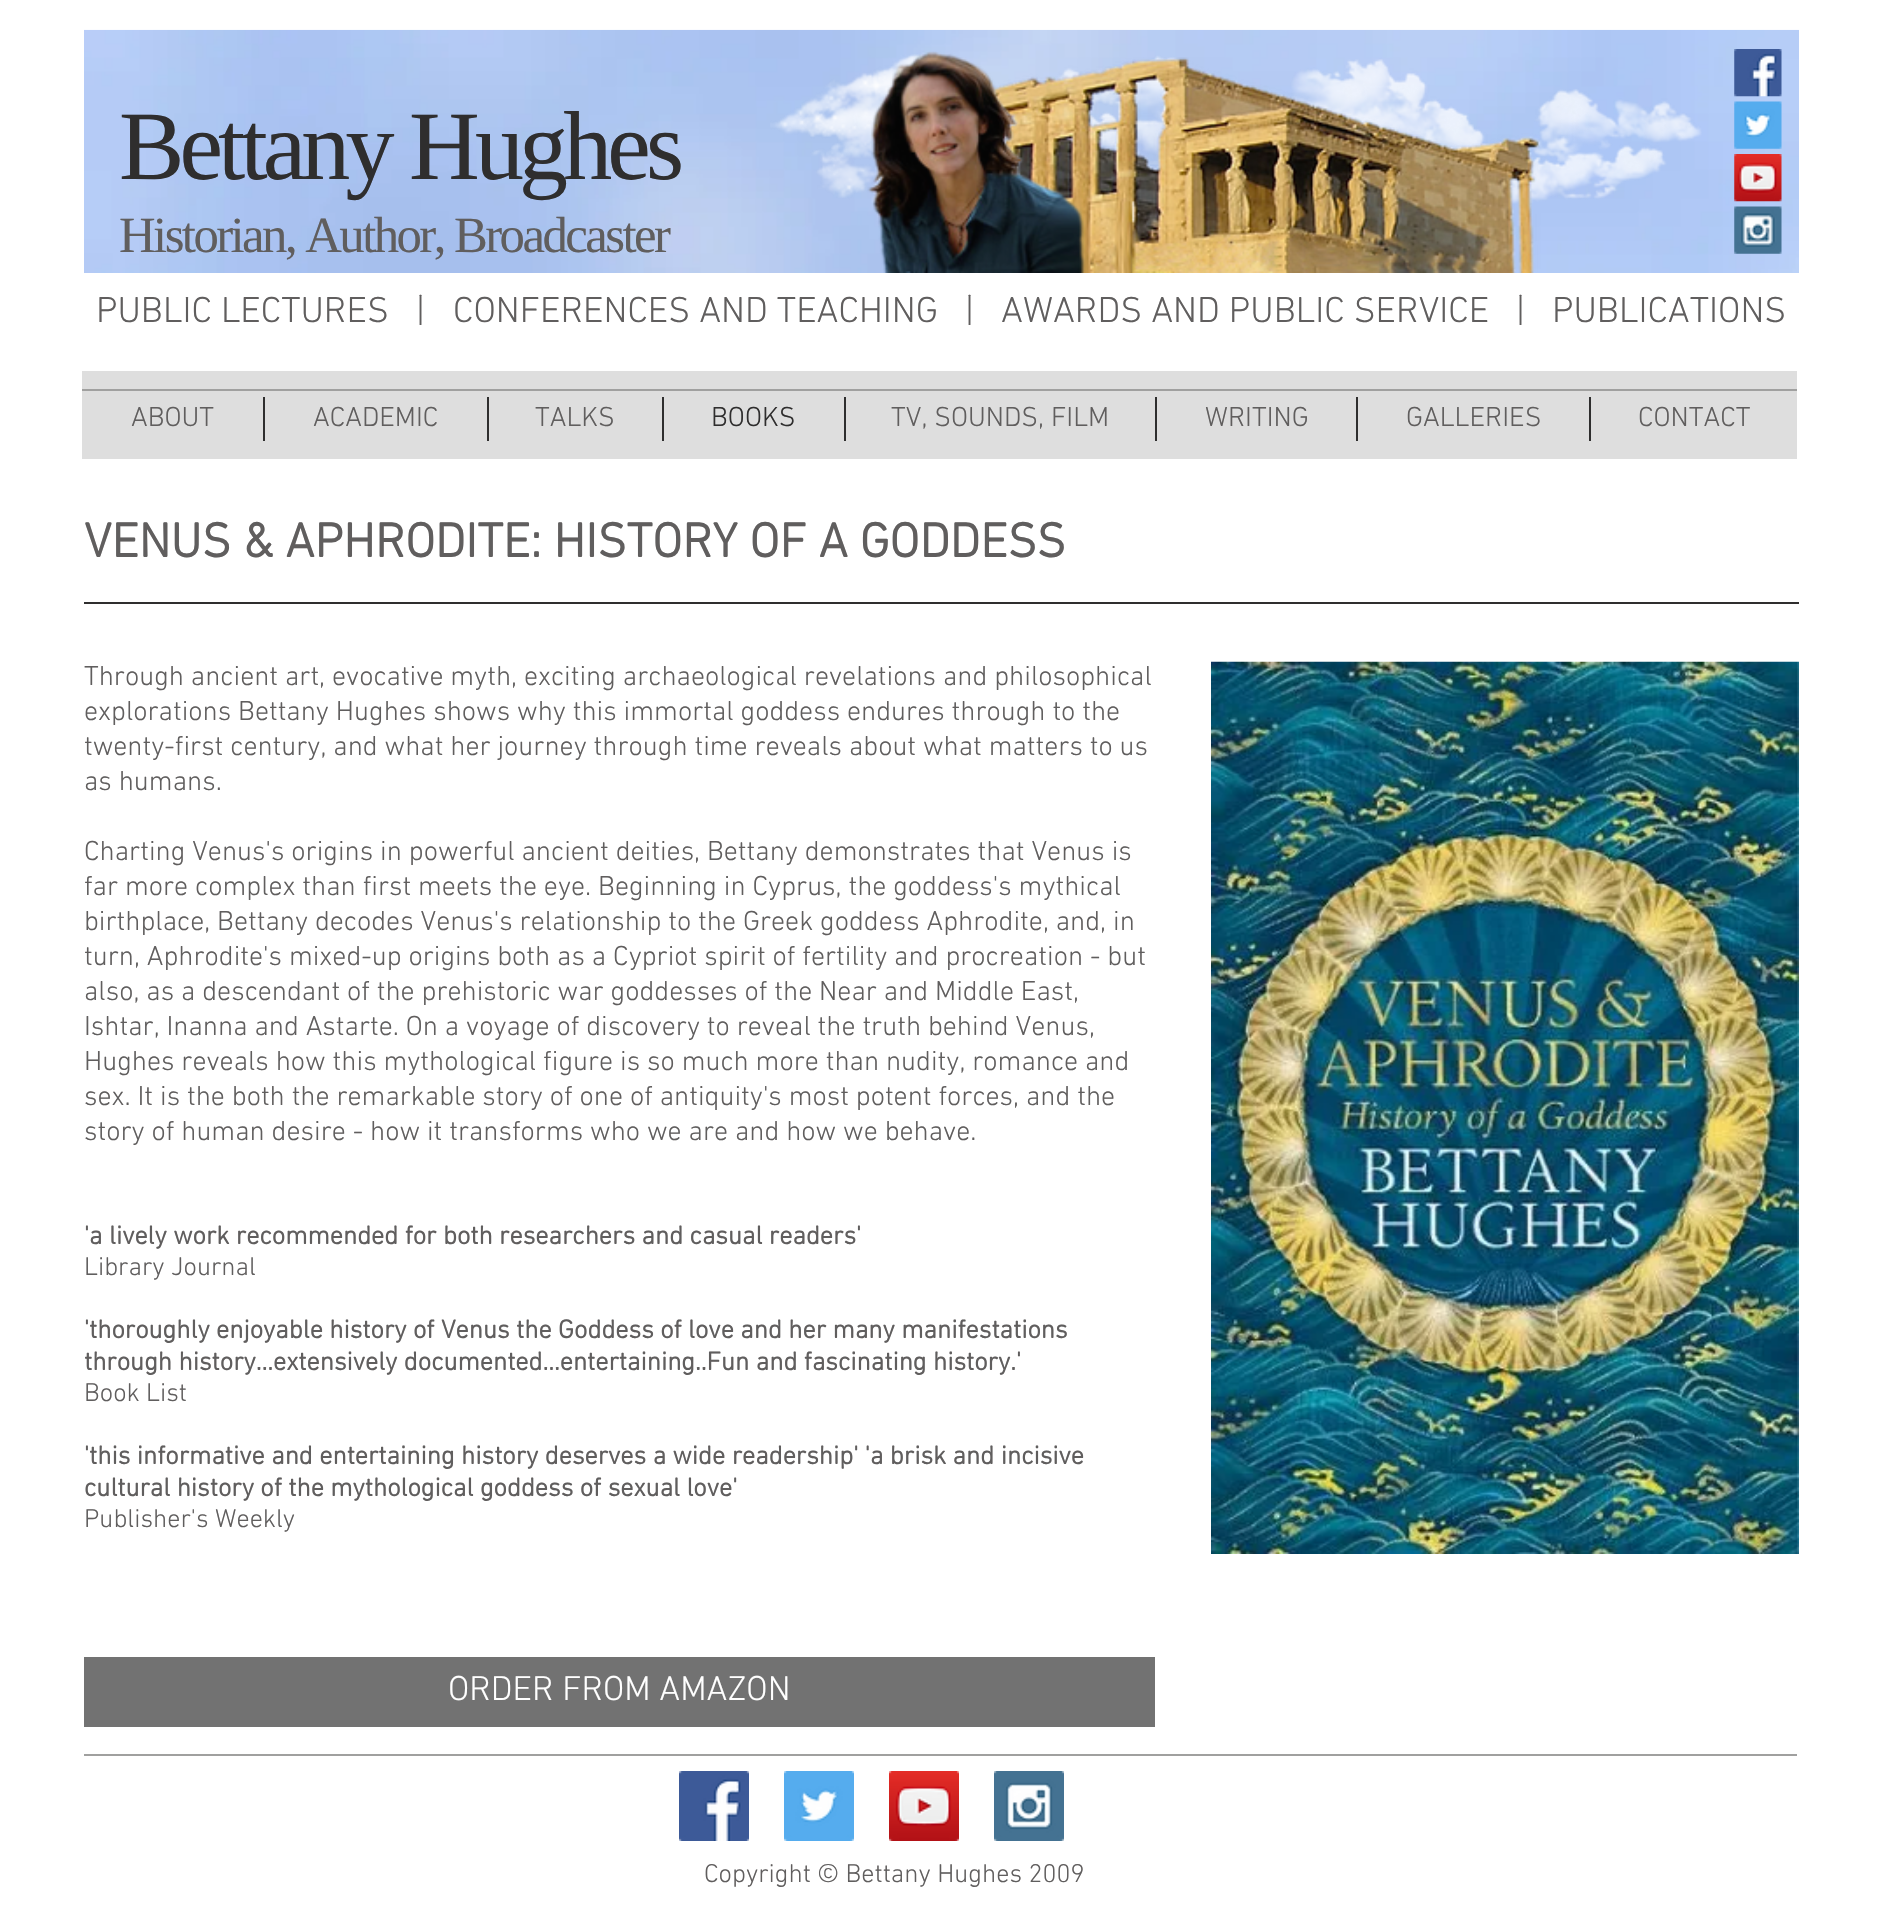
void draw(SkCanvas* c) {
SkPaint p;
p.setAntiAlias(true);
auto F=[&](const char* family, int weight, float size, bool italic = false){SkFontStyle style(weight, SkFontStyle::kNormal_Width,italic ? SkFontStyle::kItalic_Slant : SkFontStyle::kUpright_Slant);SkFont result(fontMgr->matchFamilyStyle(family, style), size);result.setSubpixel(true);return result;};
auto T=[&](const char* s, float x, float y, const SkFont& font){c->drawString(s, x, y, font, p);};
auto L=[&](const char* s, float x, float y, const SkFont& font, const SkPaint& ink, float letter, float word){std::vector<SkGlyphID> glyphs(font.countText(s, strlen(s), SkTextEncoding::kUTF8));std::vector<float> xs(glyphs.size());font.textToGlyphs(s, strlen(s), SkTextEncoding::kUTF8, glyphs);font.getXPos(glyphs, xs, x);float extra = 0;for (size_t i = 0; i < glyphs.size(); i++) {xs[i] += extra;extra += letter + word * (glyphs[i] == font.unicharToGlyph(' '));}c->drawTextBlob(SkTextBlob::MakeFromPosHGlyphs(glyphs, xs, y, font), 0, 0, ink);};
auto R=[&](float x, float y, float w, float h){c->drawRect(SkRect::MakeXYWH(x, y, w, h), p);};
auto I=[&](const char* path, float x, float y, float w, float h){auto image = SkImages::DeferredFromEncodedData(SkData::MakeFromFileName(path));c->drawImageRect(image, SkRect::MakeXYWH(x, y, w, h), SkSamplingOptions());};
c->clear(0xffffffff);
I("1.png",84,29,1715,244);
I("7.png",770,54,932,150);
I("8.png",990,57,550,216);
I("2.png",867,51,219,222);
I("3.png",1734,49,48,48);
I("4.png",1734,101,48,48);
I("5.png",1734,154,48,48);
I("6.png",1734,206,48,48);
auto f1 = F("Liberation Serif",400,98);
p.setColor(0xff2f2e2e);
L("Bettany Hughes",119,179,f1,p,-4.9,0);
auto f2 = F("Liberation Serif",400,50.75);
p.setColor(0xff605e5e);
L("Historian, Author, Broadcaster",119,252,f2,p,-2.55,0);
auto f3 = F("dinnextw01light",300,36.75);
T("PUBLIC LECTURES",96,322,f3);
T("|",416,322,f3);
T("CONFERENCES AND TEACHING",453,322,f3);
T("|",965,322,f3);
T("AWARDS AND PUBLIC SERVICE",1001,322,f3);
T("|",1516,322,f3);
T("PUBLICATIONS",1552,322,f3);
p.setColor(0xffdedede);
R(82,371,1715,88);
p.setColor(0xffa0a09f);
R(82,389,1715,2);
auto f4 = F("dinnextw01light",300,28);
p.setColor(0xff605e5e);
T("ABOUT",131,426,f4);
p.setColor(0xff2f2e2e);
R(263,397,2,44);
p.setColor(0xff605e5e);
T("ACADEMIC",313,426,f4);
p.setColor(0xff2f2e2e);
R(487,397,2,44);
p.setColor(0xff605e5e);
T("TALKS",535,426,f4);
p.setColor(0xff2f2e2e);
R(662,397,2,44);
T("BOOKS",711,426,f4);
R(844,397,2,44);
p.setColor(0xff605e5e);
T("TV, SOUNDS, FILM",891,426,f4);
p.setColor(0xff2f2e2e);
R(1155,397,2,44);
p.setColor(0xff605e5e);
T("WRITING",1205,426,f4);
p.setColor(0xff2f2e2e);
R(1356,397,2,44);
p.setColor(0xff605e5e);
T("GALLERIES",1406,426,f4);
p.setColor(0xff2f2e2e);
R(1589,397,2,44);
p.setColor(0xff605e5e);
T("CONTACT",1638,426,f4);
auto f5 = F("dinnextw01light",700,49);
T("VENUS & APHRODITE: HISTORY OF A GODDESS",84,557,f5);
p.setColor(0xff2f2e2e);
R(84,602,1715,2);
p.setColor(0xff605e5e);
T("Through ancient art, evocative myth, exciting archaeological revelations and philosophical",84,685,f4);
T("explorations Bettany Hughes shows why this immortal goddess endures through to the",84,720,f4);
T("twenty-first century, and what her journey through time reveals about what matters to us",84,755,f4);
T("as humans.",84,790,f4);
T("Charting Venus's origins in powerful ancient deities, Bettany demonstrates that Venus is",84,860,f4);
T("far more complex than first meets the eye. Beginning in Cyprus, the goddess's mythical",84,895,f4);
T("birthplace, Bettany decodes Venus's relationship to the Greek goddess Aphrodite, and, in",84,930,f4);
T("turn, Aphrodite's mixed-up origins both as a Cypriot spirit of fertility and procreation - but",84,965,f4);
T("also, as a descendant of the prehistoric war goddesses of the Near and Middle East,",84,1000,f4);
T("Ishtar, Inanna and Astarte. On a voyage of discovery to reveal the truth behind Venus,",84,1035,f4);
T("Hughes reveals how this mythological figure is so much more than nudity, romance and",84,1070,f4);
T("sex. It is the both the remarkable story of one of antiquity's most potent forces, and the",84,1105,f4);
T("story of human desire - how it transforms who we are and how we behave.",84,1140,f4);
auto f6 = F("dinnextw01light",700,26.25);
T("'a lively work recommended for both researchers and casual readers'",84,1244,f6);
auto f7 = F("dinnextw01light",300,26.25);
T("Library Journal",84,1275,f7);
T("'thoroughly enjoyable history of Venus the Goddess of love and her many manifestations",84,1338,f6);
T("through history...extensively documented...entertaining..Fun and fascinating history.'",84,1370,f6);
T("Book List",84,1401,f7);
T("'this informative and entertaining history deserves a wide readership' 'a brisk and incisive",84,1464,f6);
T("cultural history of the mythological goddess of sexual love'",84,1496,f6);
T("Publisher's Weekly",84,1527,f7);
I("9.png",1211,661,588,893);
p.setColor(0xff727272);
R(84,1657,1071,70);
auto f8 = F("dinnextw01light",300,35);
p.setColor(0xffffffff);
T("ORDER FROM AMAZON",448,1700,f8);
p.setColor(0xffa0a09f);
R(84,1754,1713,2);
I("10.png",679,1771,70,70);
I("11.png",784,1771,70,70);
I("12.png",889,1771,70,70);
I("13.png",994,1771,70,70);
p.setColor(0xff605e5e);
T("Copyright © Bettany Hughes 2009",704,1882,f7);
}
